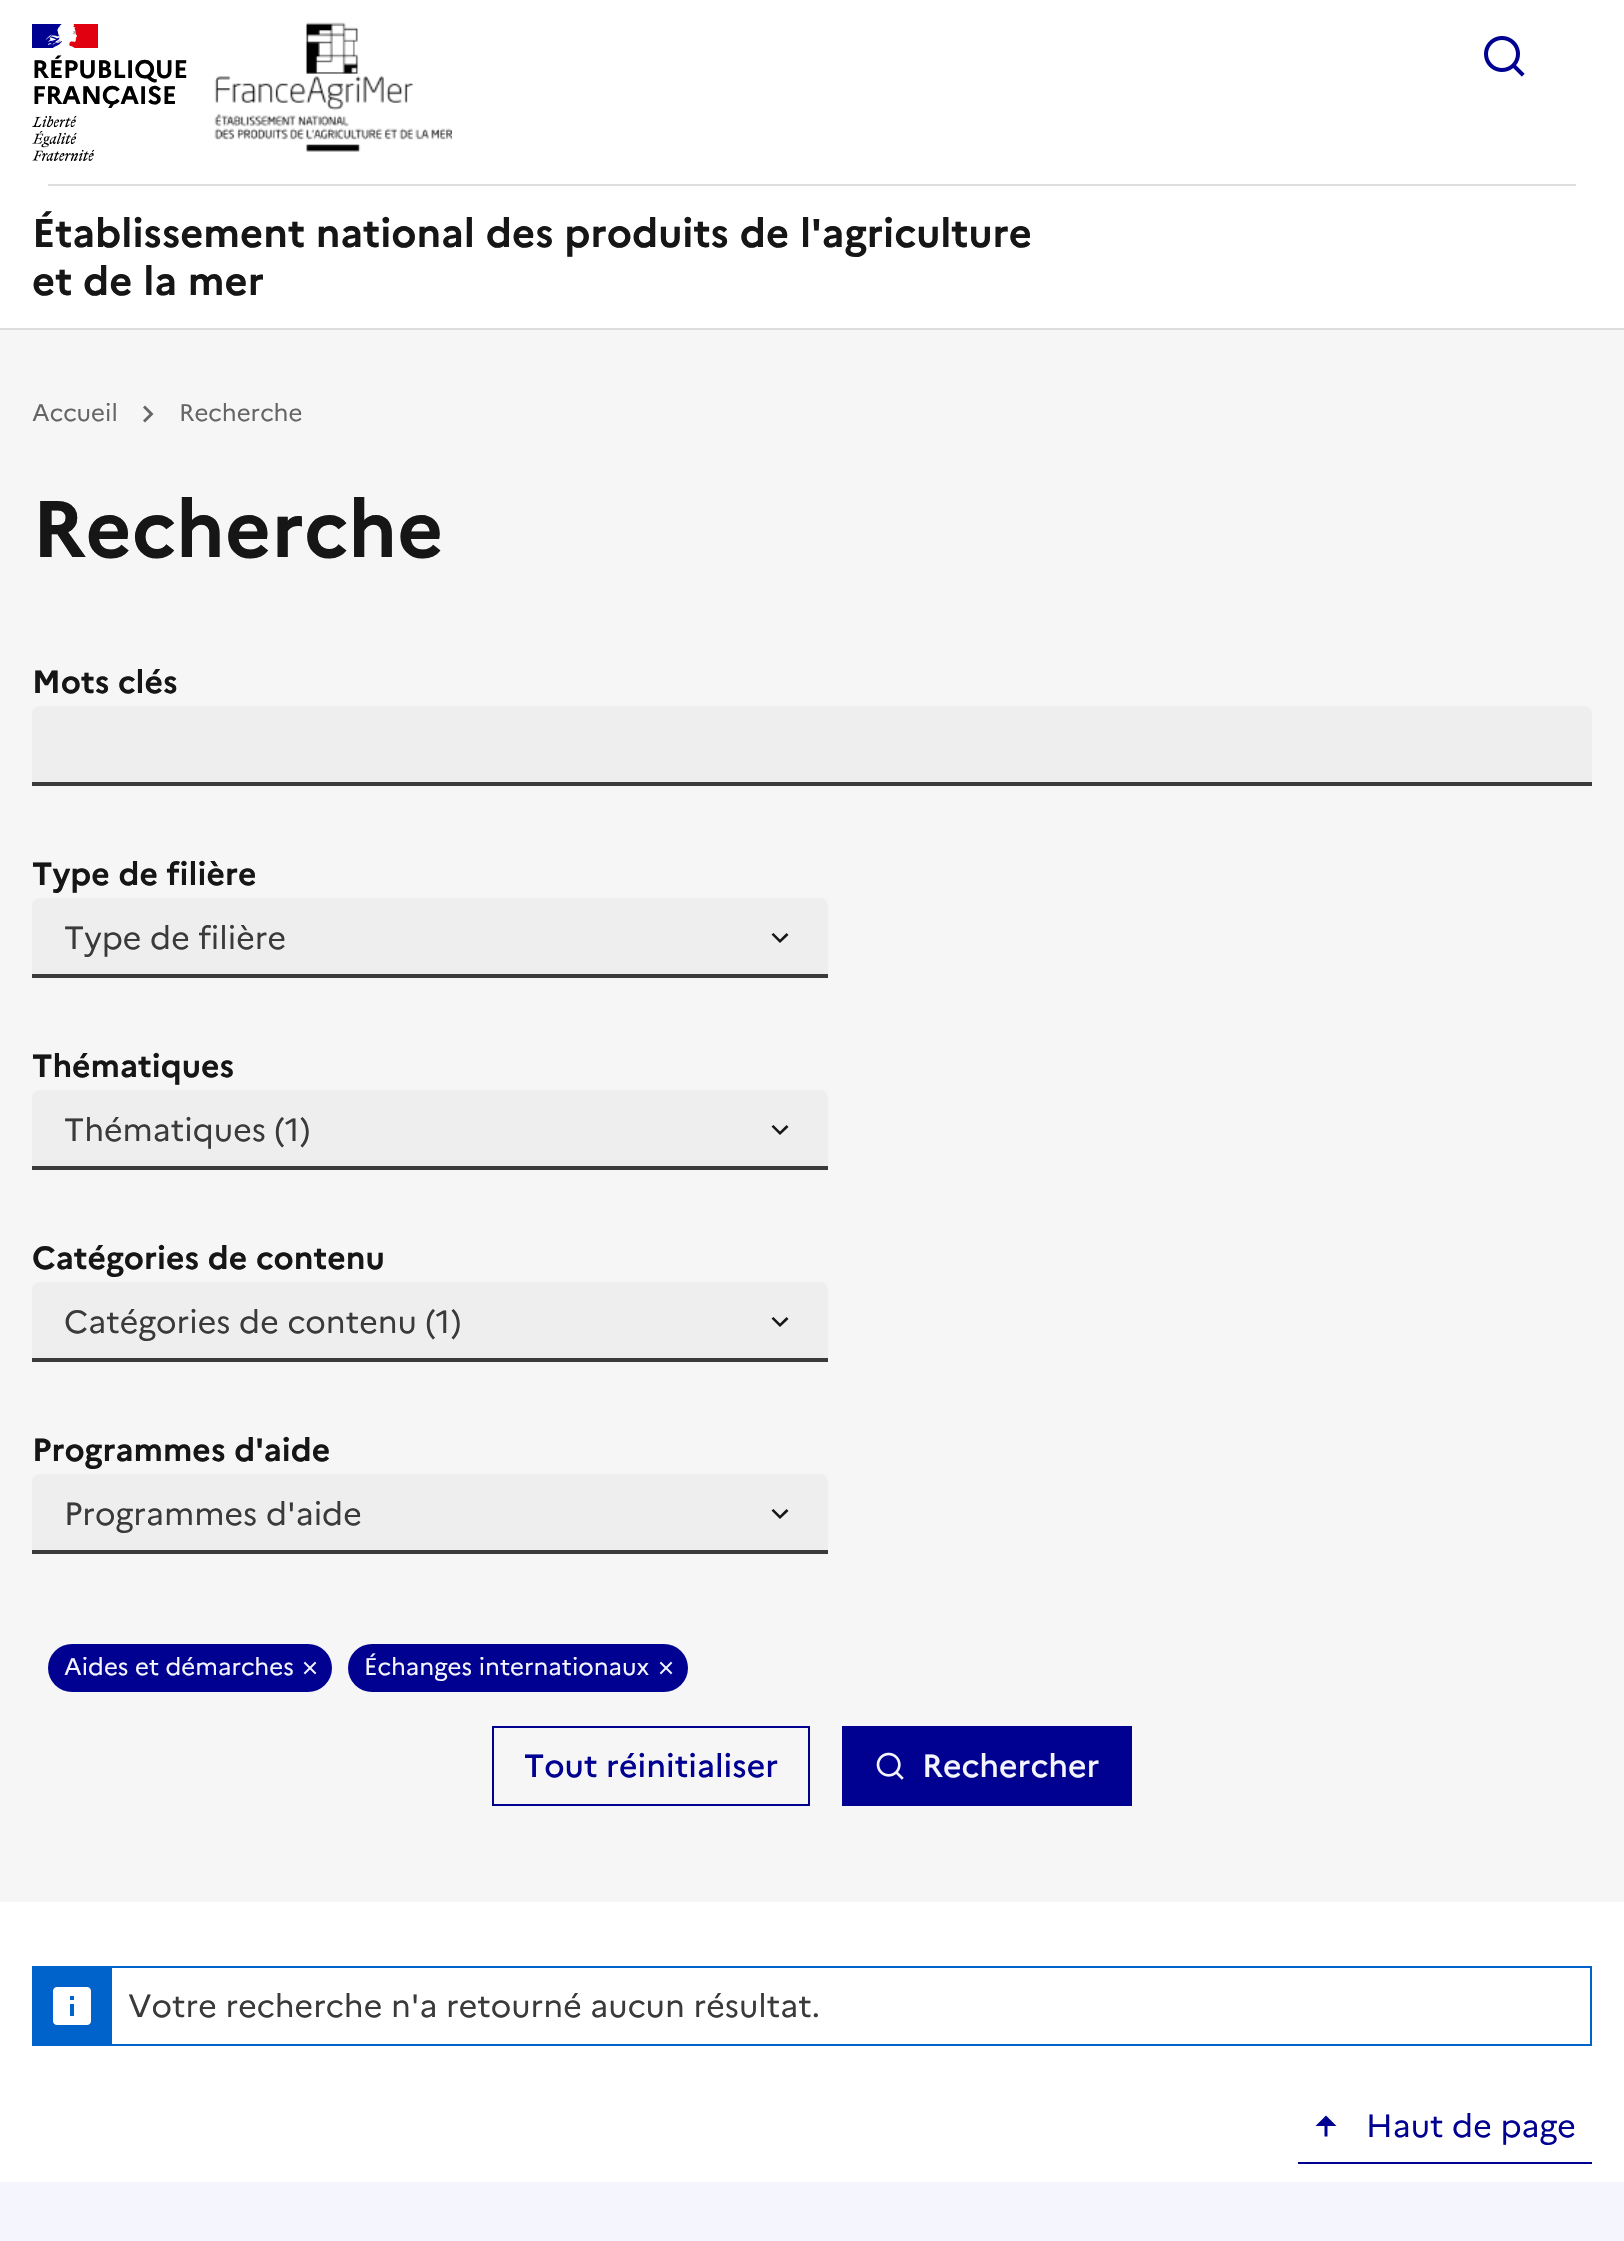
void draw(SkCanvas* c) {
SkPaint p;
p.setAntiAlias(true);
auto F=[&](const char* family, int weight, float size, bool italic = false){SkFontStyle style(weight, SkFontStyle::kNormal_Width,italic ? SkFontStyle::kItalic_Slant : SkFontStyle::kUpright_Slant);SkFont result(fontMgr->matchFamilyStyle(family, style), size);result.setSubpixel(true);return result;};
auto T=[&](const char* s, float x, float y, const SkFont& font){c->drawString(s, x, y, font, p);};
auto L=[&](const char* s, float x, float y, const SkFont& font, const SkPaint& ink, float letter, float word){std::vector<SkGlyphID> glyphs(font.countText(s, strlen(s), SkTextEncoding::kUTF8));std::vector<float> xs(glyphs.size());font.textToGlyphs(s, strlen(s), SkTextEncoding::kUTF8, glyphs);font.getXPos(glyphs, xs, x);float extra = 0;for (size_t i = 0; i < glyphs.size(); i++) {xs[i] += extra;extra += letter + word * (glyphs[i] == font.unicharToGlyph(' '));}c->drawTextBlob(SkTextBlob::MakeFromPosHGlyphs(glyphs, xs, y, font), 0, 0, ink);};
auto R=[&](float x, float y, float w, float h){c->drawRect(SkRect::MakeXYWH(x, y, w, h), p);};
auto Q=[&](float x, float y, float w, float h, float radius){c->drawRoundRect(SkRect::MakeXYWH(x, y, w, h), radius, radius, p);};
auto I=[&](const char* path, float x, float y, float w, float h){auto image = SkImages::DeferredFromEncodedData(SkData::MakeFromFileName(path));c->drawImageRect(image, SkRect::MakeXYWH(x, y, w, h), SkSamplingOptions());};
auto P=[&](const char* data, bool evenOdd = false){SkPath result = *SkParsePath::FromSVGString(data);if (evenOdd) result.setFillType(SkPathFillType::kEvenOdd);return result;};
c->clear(0xffffffff);
p.setColor(0xff000091);
R(32,24,31,24);
p.setColor(0xffe1000f);
R(69,24,29,24);
I("1.png",45,24,32,24);
auto f1 = F("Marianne",700,25.25);
p.setColor(0xff000000);
L("RÉPUBLIQUE",32,78,f1,p,-.25,0);
L("FRANÇAISE",32,104,f1,p,-.25,0);
I("2.png",32,116,63,45);
I("3.png",214,22,238,130);
I("4.png",1484,36,41,41);
p.setColor(0xffdddddd);
R(48,184,1528,2);
auto f2 = F("Marianne",700,40);
p.setColor(0xff161616);
T("Établissement national des produits de l'agriculture",32,247,f2);
T("et de la mer",32,295,f2);
p.setColor(0xffdddddd);
R(0,328,1624,2);
p.setColor(0xfff6f6f6);
R(0,330,1624,1572);
auto f3 = F("Marianne",400,24);
p.setColor(0xff666666);
T("Accueil",32,421,f3);
c->drawPath(P("M149.5 414l-6.5-6.5l2-2l8.5 8.5l-8.5 8.5l-2-2z"),p);
T("Recherche",179,421,f3);
auto f4 = F("Marianne",700,80);
p.setColor(0xff161616);
T("Recherche",32,557,f4);
auto f5 = F("Marianne",700,32);
T("Mots clés",32,693,f5);
p.setColor(0xffeeeeee);
c->drawPath(P("M40 706h1544c4.5 0 8 3.5 8 8v72h-1560v-72c0-4.5 3.5-8 8-8z"),p);
p.setColor(0xff3a3a3a);
R(32,782,1560,4);
p.setColor(0xff161616);
T("Type de filière",32,885,f5);
p.setColor(0xffeeeeee);
c->drawPath(P("M40 898h780c4.5 0 8 3.5 8 8v72h-796v-72c0-4.5 3.5-8 8-8z"),p);
p.setColor(0xff161616);
c->drawPath(P("M780 939.5l6.5-6.5l2 2l-8.5 8l-8.5-8.5l2-1.5z"),p);
p.setColor(0xff3a3a3a);
R(32,974,796,4);
auto f6 = F("Marianne",400,32);
T("Type de filière",64,949,f6);
p.setColor(0xff161616);
T("Thématiques",32,1077,f5);
p.setColor(0xffeeeeee);
c->drawPath(P("M40 1090h780c4.5 0 8 3.5 8 8v72h-796v-72c0-4.5 3.5-8 8-8z"),p);
p.setColor(0xff161616);
c->drawPath(P("M780 1131.5l6.5-6.5l2 2l-8.5 8l-8.5-8.5l2-1.5z"),p);
p.setColor(0xff3a3a3a);
R(32,1166,796,4);
T("Thématiques (1)",64,1141,f6);
p.setColor(0xff161616);
T("Catégories de contenu",32,1269,f5);
p.setColor(0xffeeeeee);
c->drawPath(P("M40 1282h780c4.5 0 8 3.5 8 8v72h-796v-72c0-4.5 3.5-8 8-8z"),p);
p.setColor(0xff161616);
c->drawPath(P("M780 1323.5l6.5-6.5l2 2l-8.5 8l-8.5-8.5l2-1.5z"),p);
p.setColor(0xff3a3a3a);
R(32,1358,796,4);
T("Catégories de contenu (1)",64,1333,f6);
p.setColor(0xff161616);
T("Programmes d'aide",32,1461,f5);
p.setColor(0xffeeeeee);
c->drawPath(P("M40 1474h780c4.5 0 8 3.5 8 8v72h-796v-72c0-4.5 3.5-8 8-8z"),p);
p.setColor(0xff161616);
c->drawPath(P("M780 1515.5l6.5-6.5l2 2l-8.5 8l-8.5-8.5l2-1.5z"),p);
p.setColor(0xff3a3a3a);
R(32,1550,796,4);
T("Programmes d'aide",64,1525,f6);
p.setColor(0xff000091);
Q(48,1644,284,48,24);
p.setColor(0xfff5f5fe);
T("Aides et démarches",64,1675,f3);
I("5.png",303,1661,14,14);
p.setColor(0xff000091);
Q(348,1644,340,48,24);
p.setColor(0xfff5f5fe);
T("Échanges internationaux",364,1675,f3);
I("5.png",659,1661,14,14);
p.setStroke(true);
p.setStrokeWidth(2);
p.setColor(0xff000091);
c->drawRect(SkRect::MakeXYWH(493,1727,316,78),p);
auto f7 = F("Marianne",500,32);
p.setStroke(false);
T("Tout réinitialiser",524,1777,f7);
R(842,1726,290,80);
I("6.png",876,1752,28,28);
p.setColor(0xfff5f5fe);
T("Rechercher",922,1777,f7);
p.setColor(0xff0063cb);
R(112,2044,1480,2);
R(32,1968,80,78);
R(1590,1966,2,80);
R(32,1966,1560,2);
I("7.png",53,1987,38,38);
p.setColor(0xff3a3a3a);
T("Votre recherche n'a retourné aucun résultat.",128,2017,f6);
p.setColor(0xff000091);
R(1298,2162,294,2);
c->drawPath(P("M1327.5 2126v10.5h-3v-10.5h-9l10.5-10.5l10.5 10.5z"),p);
T("Haut de page",1366,2137,f6);
p.setColor(0xfff5f5fe);
R(0,2182,1624,59);
}
